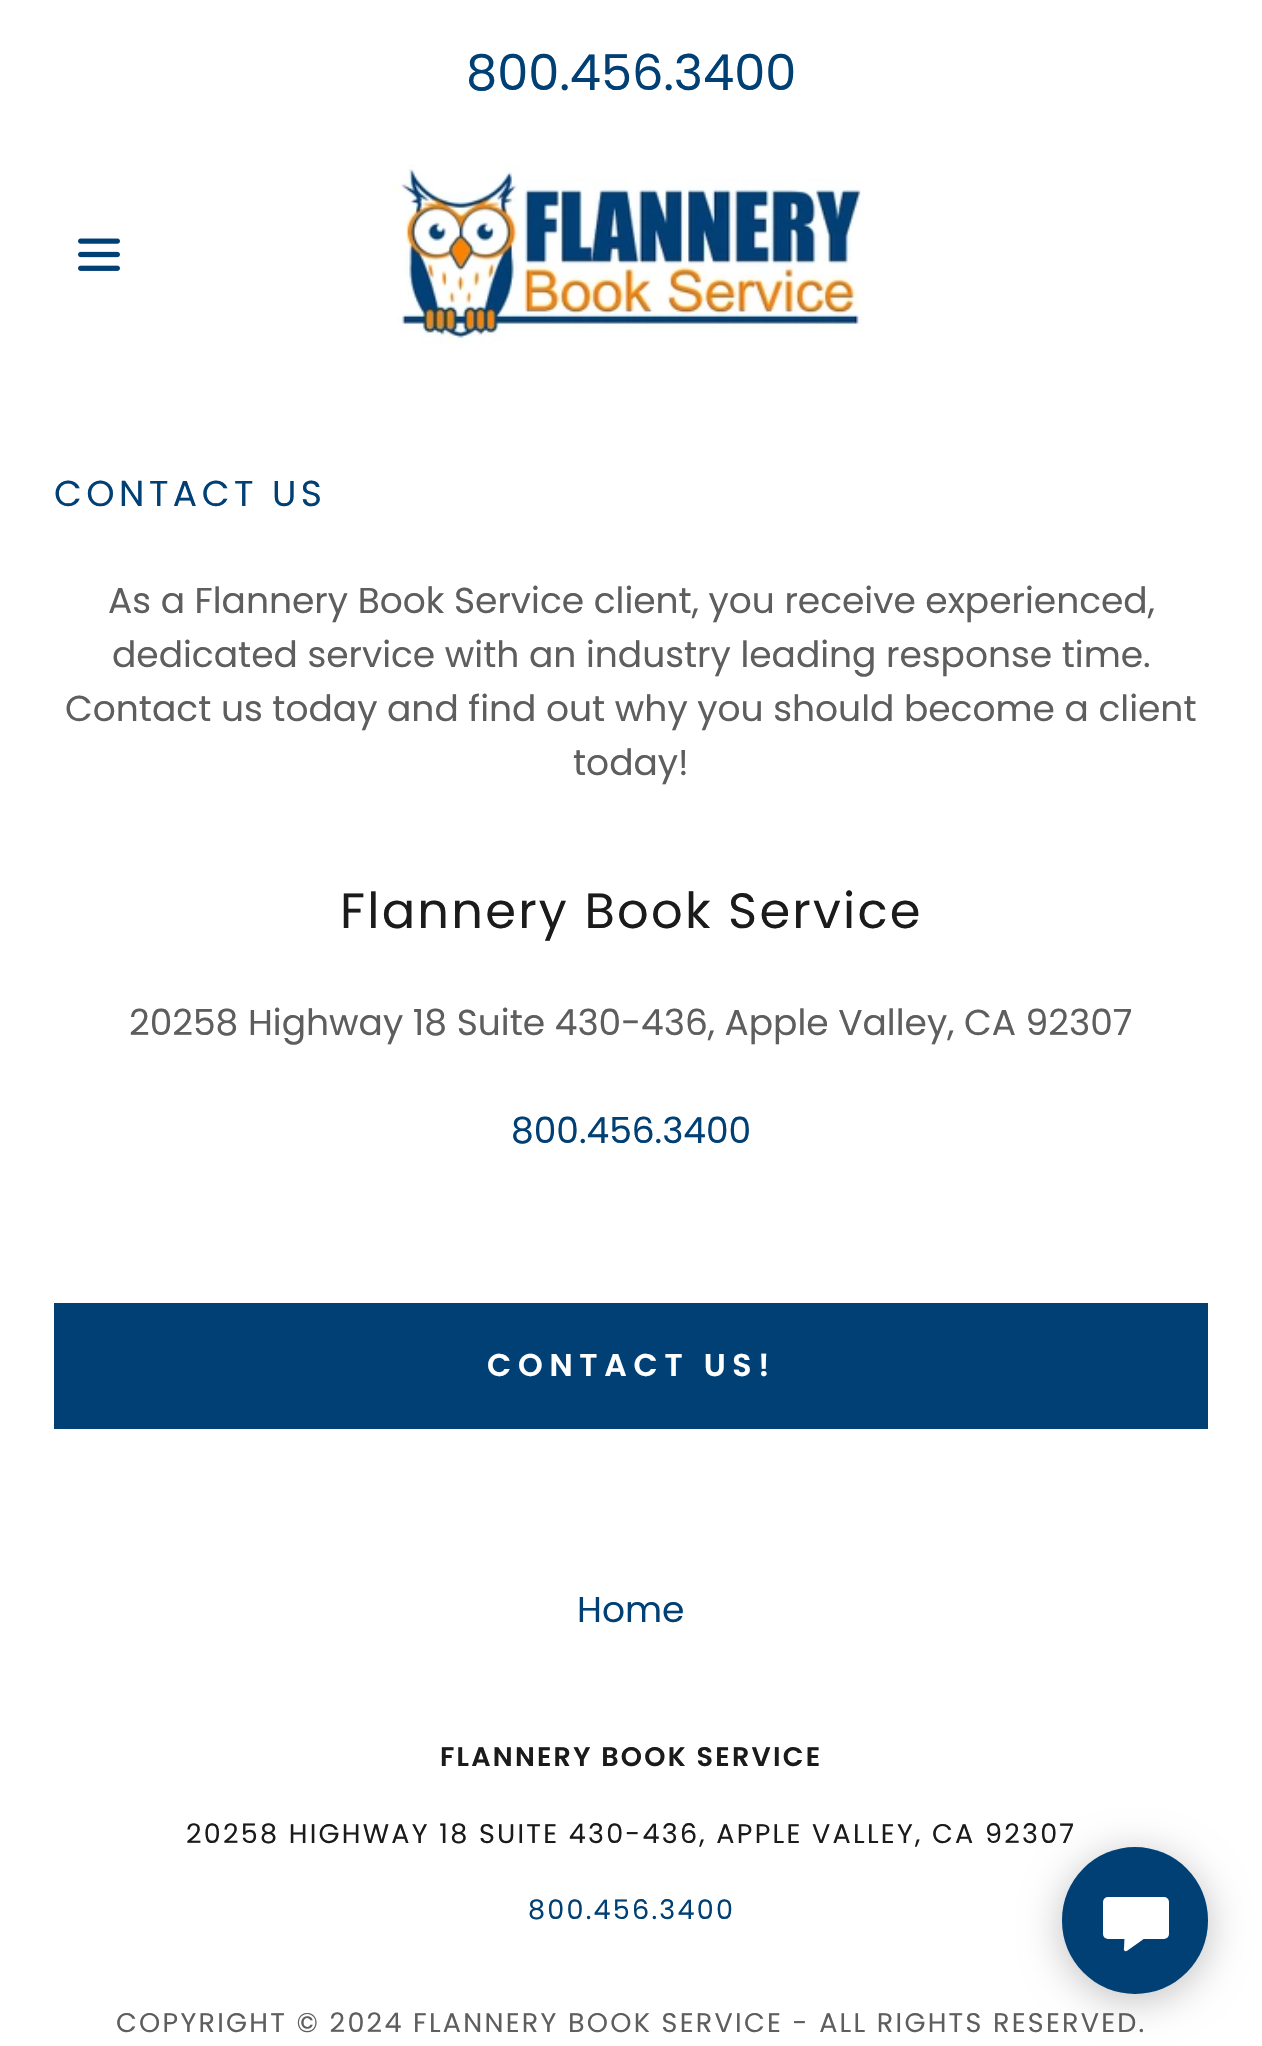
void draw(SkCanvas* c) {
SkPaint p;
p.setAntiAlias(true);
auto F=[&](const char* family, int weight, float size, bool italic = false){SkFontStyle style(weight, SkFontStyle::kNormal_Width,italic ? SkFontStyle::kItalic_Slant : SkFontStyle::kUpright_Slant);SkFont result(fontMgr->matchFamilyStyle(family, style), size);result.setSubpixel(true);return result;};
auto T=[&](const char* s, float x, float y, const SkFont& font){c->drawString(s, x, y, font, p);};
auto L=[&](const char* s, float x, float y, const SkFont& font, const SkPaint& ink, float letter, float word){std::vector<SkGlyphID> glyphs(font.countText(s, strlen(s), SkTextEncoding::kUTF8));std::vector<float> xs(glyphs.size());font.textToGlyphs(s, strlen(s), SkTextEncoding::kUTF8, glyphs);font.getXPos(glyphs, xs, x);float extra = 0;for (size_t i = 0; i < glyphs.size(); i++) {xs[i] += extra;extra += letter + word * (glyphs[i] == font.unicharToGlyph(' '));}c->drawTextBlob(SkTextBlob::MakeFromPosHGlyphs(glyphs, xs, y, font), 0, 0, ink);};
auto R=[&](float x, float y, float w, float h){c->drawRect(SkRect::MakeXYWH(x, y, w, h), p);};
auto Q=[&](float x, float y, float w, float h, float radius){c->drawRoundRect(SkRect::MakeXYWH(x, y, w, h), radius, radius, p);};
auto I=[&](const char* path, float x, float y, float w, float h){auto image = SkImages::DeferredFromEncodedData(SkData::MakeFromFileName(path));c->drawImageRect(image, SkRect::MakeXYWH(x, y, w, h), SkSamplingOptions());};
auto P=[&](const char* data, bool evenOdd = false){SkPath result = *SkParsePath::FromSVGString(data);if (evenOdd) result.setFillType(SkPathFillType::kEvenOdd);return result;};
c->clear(0xffffffff);
auto f1 = F("Poppins",400,49.5);
p.setColor(0xff014075);
T("800.456.3400",466,90,f1);
I("1.png",78,238,42,33);
I("2.png",394,164,471,180);
auto f2 = F("Poppins",400,36);
L("CONTACT US",54,506,f2,p,4.5,0);
p.setColor(0xff5e5e5e);
T("As a Flannery Book Service client, you receive experienced,",108,613,f2);
T("dedicated service with an industry leading response time.",112,667,f2);
T("Contact us today and find out why you should become a client",65,721,f2);
T("today!",573,775,f2);
p.setColor(0xff1b1b1b);
L("Flannery Book Service",340,928,f1,p,2.25,0);
p.setColor(0xff5e5e5e);
T("20258 Highway 18 Suite 430-436, Apple Valley, CA 92307",129,1035,f2);
p.setColor(0xff014075);
T("800.456.3400",511,1143,f2);
R(54,1303,1154,126);
auto f3 = F("Poppins",600,31.5);
p.setColor(0xffffffff);
L("CONTACT US!",487,1376,f3,p,6.75,0);
p.setColor(0xff014075);
T("Home",577,1622,f2);
auto f4 = F("Poppins",600,27);
p.setColor(0xff1b1b1b);
L("FLANNERY BOOK SERVICE",440,1766,f4,p,2.25,0);
auto f5 = F("Poppins",400,27);
L("20258 HIGHWAY 18 SUITE 430-436, APPLE VALLEY, CA 92307",186,1843,f5,p,2.25,0);
p.setColor(0xff014075);
L("800.456.3400",528,1919,f5,p,2.25,0);
p.setColor(0xff5e5e5e);
L("COPYRIGHT © 2024 FLANNERY BOOK SERVICE - ALL RIGHTS RESERVED.",116,2032,f5,p,2.25,0);
p.setColor(0x40000000);
p.setMaskFilter(SkMaskFilter::MakeBlur(kNormal_SkBlurStyle, 20));
c->drawRoundRect(SkRect::MakeXYWH(1062,1854,146,146),73,73,p);
p.setMaskFilter(nullptr);
p.setColor(0xff014075);
Q(1062,1847,146,147,73);
p.setColor(0xffffffff);
Q(1103,1897,66,42,5);
c->drawPath(P("M1124 1948.5l.5-11c0-1.5 1-2.5 2.5-2.5h15c2 0 3 3 1 4.5l-15.5 11c-1 .5-1.5 1-2.5 .5c-1-.5-1.5-1.5-1-2.5z"),p);
}
